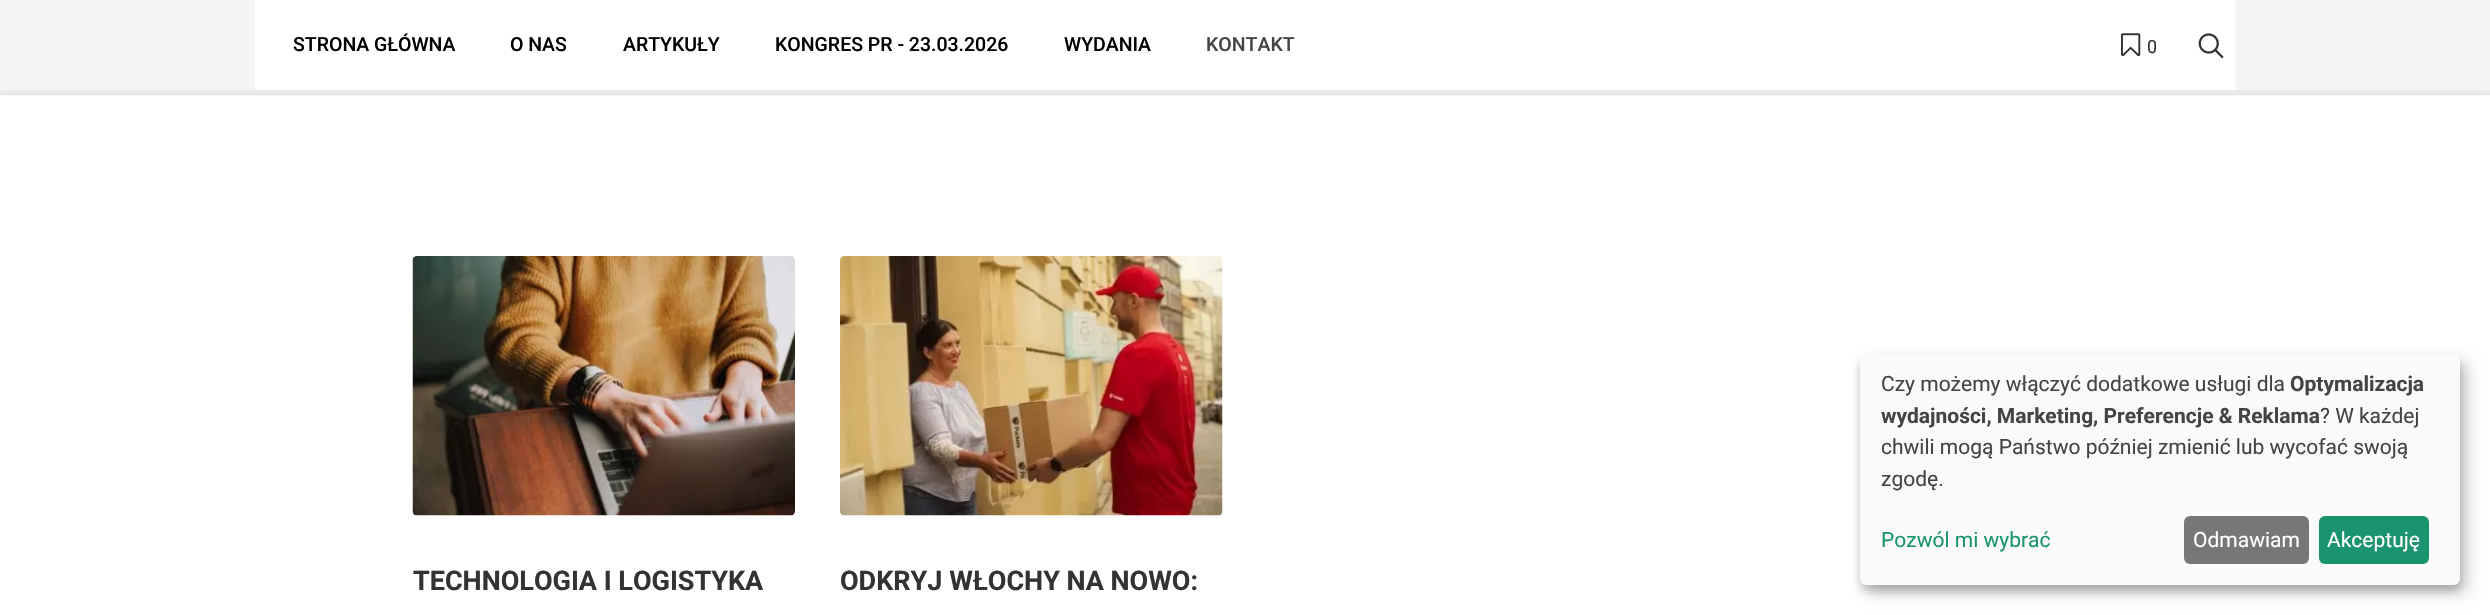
void draw(SkCanvas* c) {
SkPaint p;
p.setAntiAlias(true);
auto F=[&](const char* family, int weight, float size, bool italic = false){SkFontStyle style(weight, SkFontStyle::kNormal_Width,italic ? SkFontStyle::kItalic_Slant : SkFontStyle::kUpright_Slant);SkFont result(fontMgr->matchFamilyStyle(family, style), size);result.setSubpixel(true);return result;};
auto T=[&](const char* s, float x, float y, const SkFont& font){c->drawString(s, x, y, font, p);};
auto R=[&](float x, float y, float w, float h){c->drawRect(SkRect::MakeXYWH(x, y, w, h), p);};
auto Q=[&](float x, float y, float w, float h, float radius){c->drawRoundRect(SkRect::MakeXYWH(x, y, w, h), radius, radius, p);};
auto I=[&](const char* path, float x, float y, float w, float h){auto image = SkImages::DeferredFromEncodedData(SkData::MakeFromFileName(path));c->drawImageRect(image, SkRect::MakeXYWH(x, y, w, h), SkSamplingOptions());};
c->clear(0xffffffff);
p.setColor(0xfff5f5f5);
R(0,0,2490,93);
p.setColor(0xffeeeeee);
R(0,93,2490,2);
c->save();
c->clipRect(SkRect::MakeXYWH(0,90,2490,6));
p.setColor(0x1a000000);
p.setMaskFilter(SkMaskFilter::MakeBlur(kNormal_SkBlurStyle, 7.5));
c->drawRect(SkRect::MakeXYWH(0,0,2490,90),p);
p.setMaskFilter(nullptr);
c->restore();
p.setColor(0xffffffff);
R(255,0,1980,90);
auto f1 = F("Roboto",500,19.5);
p.setColor(0xff000000);
T("STRONA GŁÓWNA",293,51,f1);
T("O NAS",510,51,f1);
T("ARTYKUŁY",623,51,f1);
T("KONGRES PR - 23.03.2026",775,51,f1);
T("WYDANIA",1064,51,f1);
p.setColor(0xff444444);
T("KONTAKT",1206,51,f1);
I("1.png",2121,33,20,24);
auto f2 = F("Roboto",400,18);
p.setColor(0xff333333);
T("0",2147,53,f2);
I("2.png",2198,33,26,26);
I("3.png",412,256,383,260);
auto f3 = F("Roboto",700,27);
T("TECHNOLOGIA I LOGISTYKA",413,590,f3);
I("4.png",840,256,383,260);
T("ODKRYJ WŁOCHY NA NOWO:",840,590,f3);
p.setColor(0x30000000);
p.setMaskFilter(SkMaskFilter::MakeBlur(kNormal_SkBlurStyle, 7.5));
c->drawRoundRect(SkRect::MakeXYWH(1868,362,600,231),6,6,p);
p.setMaskFilter(nullptr);
p.setColor(0x33000000);
p.setMaskFilter(SkMaskFilter::MakeBlur(kNormal_SkBlurStyle, 4.5));
c->drawRoundRect(SkRect::MakeXYWH(1860,360,600,231),6,6,p);
p.setMaskFilter(nullptr);
p.setColor(0xfffafafa);
Q(1860,354,600,231,6);
auto f4 = F("Roboto",400,21);
p.setColor(0xff444444);
T("Czy możemy włączyć dodatkowe usługi dla",1881,391,f4);
auto f5 = F("Roboto",700,21);
T("Optymalizacja",2290,391,f5);
T("wydajności, Marketing, Preferencje & Reklama",1881,423,f5);
T("? W każdej",2320,423,f4);
T("chwili mogą Państwo później zmienić lub wycofać swoją",1881,454,f4);
T("zgodę.",1881,486,f4);
p.setColor(0xff1a936f);
T("Pozwól mi wybrać",1881,547,f4);
p.setColor(0xff777777);
Q(2184,516,125,48,6);
p.setColor(0xffffffff);
T("Odmawiam",2193,547,f4);
p.setColor(0xff1a936f);
Q(2319,516,110,48,6);
p.setColor(0xffffffff);
T("Akceptuję",2327,547,f4);
}
